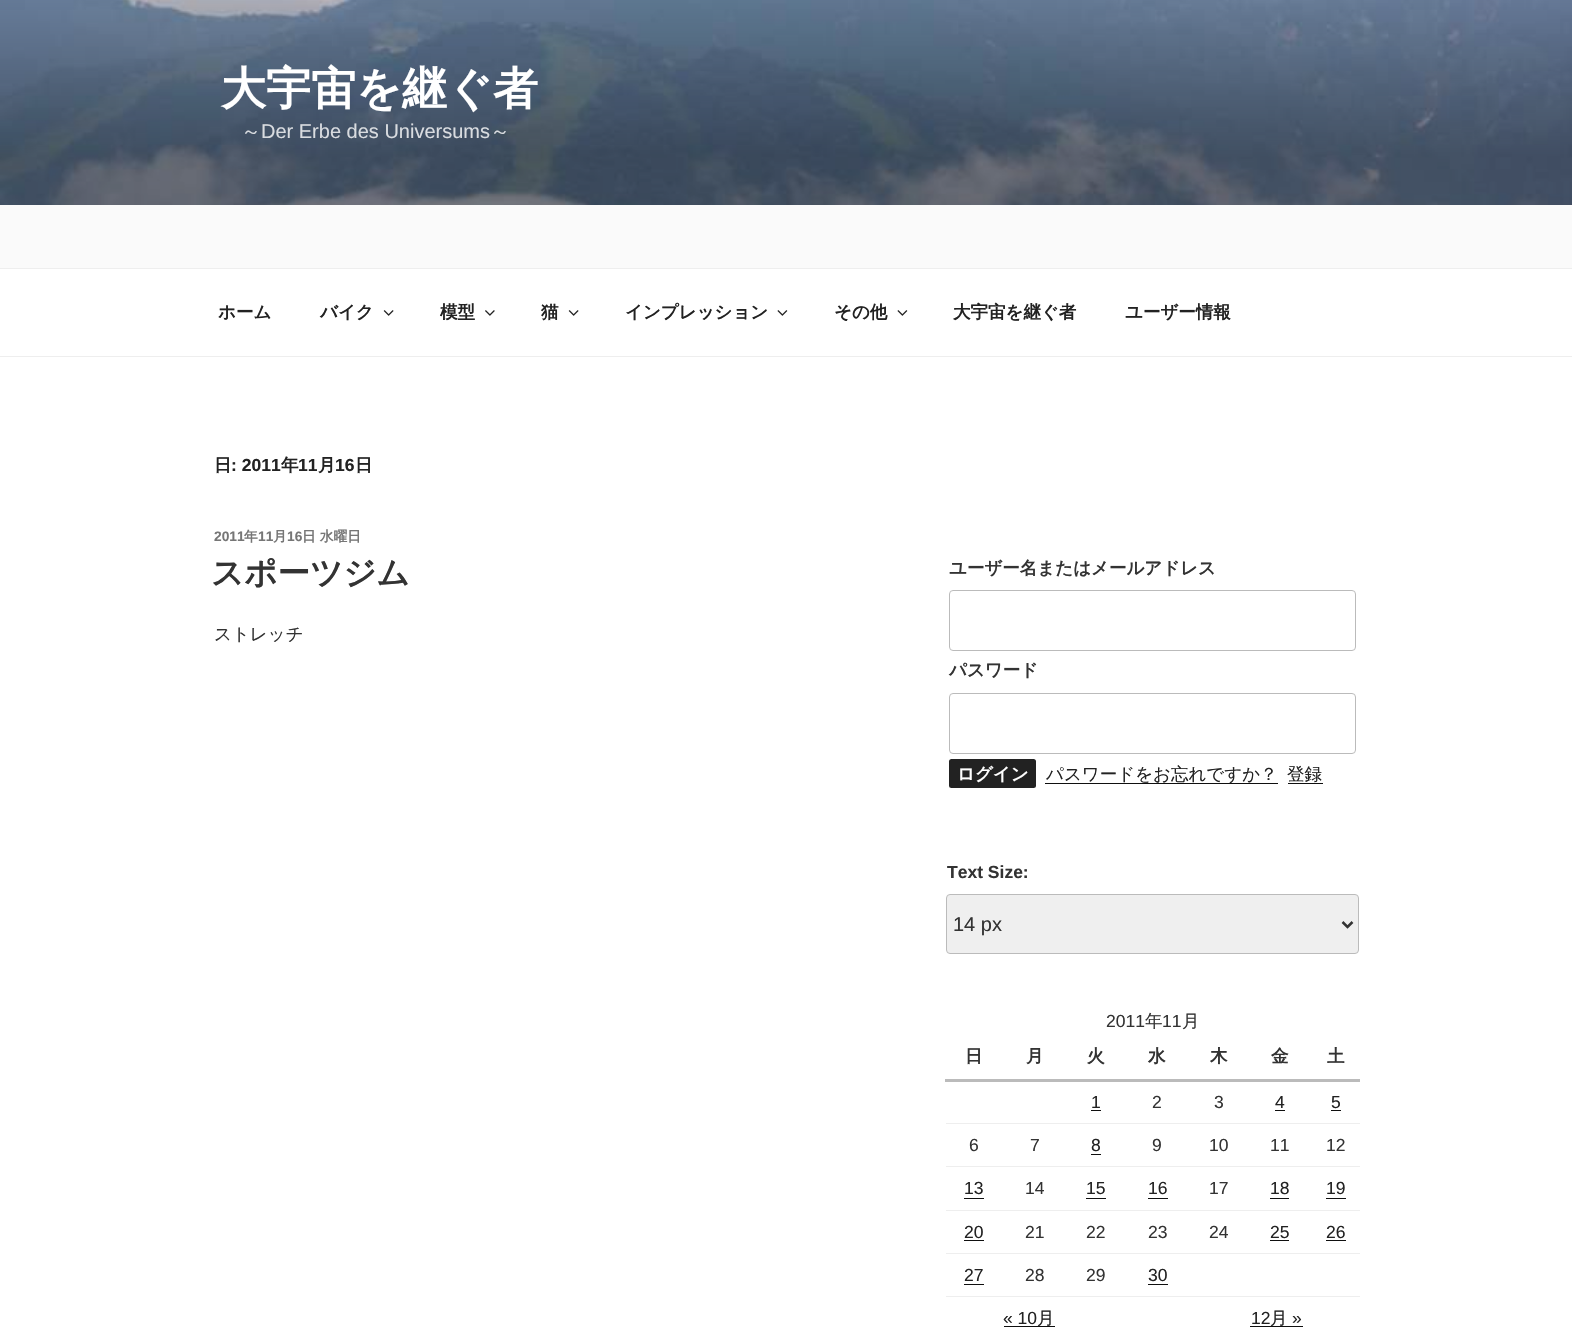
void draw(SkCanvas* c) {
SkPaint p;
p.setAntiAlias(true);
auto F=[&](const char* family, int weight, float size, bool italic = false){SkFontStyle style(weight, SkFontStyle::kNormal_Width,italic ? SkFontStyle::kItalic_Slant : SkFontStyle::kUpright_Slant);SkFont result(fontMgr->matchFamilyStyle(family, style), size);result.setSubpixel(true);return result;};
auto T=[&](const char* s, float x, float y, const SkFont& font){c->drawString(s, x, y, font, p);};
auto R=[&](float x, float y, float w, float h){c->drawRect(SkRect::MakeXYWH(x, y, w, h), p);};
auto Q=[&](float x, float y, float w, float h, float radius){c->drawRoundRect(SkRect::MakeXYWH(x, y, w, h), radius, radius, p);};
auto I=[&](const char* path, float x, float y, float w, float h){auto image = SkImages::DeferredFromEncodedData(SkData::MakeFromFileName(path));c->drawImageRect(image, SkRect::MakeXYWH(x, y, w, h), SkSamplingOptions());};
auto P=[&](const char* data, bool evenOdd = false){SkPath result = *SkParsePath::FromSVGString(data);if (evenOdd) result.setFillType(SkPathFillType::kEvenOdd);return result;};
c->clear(0xffffffff);
p.setColor(0xfffafafa);
R(0,205,1572,63);
I("1.png",0,0,1572,205);
auto f1 = F("WenQuanYi Zen Hei",700,45);
p.setColor(0xffffffff);
T("大宇宙を継ぐ者",221,104,f1);
auto f2 = F("WenQuanYi Zen Hei",500,20);
p.setColor(0xffd9dce0);
T("～",241,138,f2);
auto f3 = F("Liberation Sans",400,20);
T("Der Erbe des Universums",261,138,f3);
T("～",490,138,f2);
p.setColor(0xffeeeeee);
R(0,268,1572,1);
R(0,356,1572,1);
auto f4 = F("WenQuanYi Zen Hei",700,17.5);
p.setColor(0xff222222);
T("ホーム",218,318,f4);
T("バイク",320,318,f4);
I("2.png",383,310,11,6);
T("模型",440,318,f4);
I("3.png",485,310,10,6);
T("猫",541,318,f4);
I("2.png",568,310,11,6);
T("インプレッション",625,318,f4);
I("4.png",777,310,11,6);
T("その他",834,318,f4);
I("4.png",897,310,11,6);
T("大宇宙を継ぐ者",953,318,f4);
T("ユーザー情報",1125,318,f4);
T("日",214,471,f4);
auto f5 = F("Liberation Sans",700,17.5);
T(": 2011",231,471,f5);
T("年",281,471,f4);
T("11",298,471,f5);
T("月",318,471,f4);
T("16",335,471,f5);
T("日",355,471,f4);
auto f6 = F("Liberation Sans",700,13.75);
p.setColor(0xff767676);
T("2011",214,541,f6);
auto f7 = F("WenQuanYi Zen Hei",700,13.75);
T("年",244,541,f7);
T("11",258,541,f6);
T("月",273,541,f7);
T("16",287,541,f6);
T("日 水曜日",302,541,f7);
auto f8 = F("WenQuanYi Zen Hei",700,32.5);
p.setColor(0xff333333);
T("スポーツジム",211,584,f8);
auto f9 = F("WenQuanYi Zen Hei",500,17.5);
T("ストレッチ",214,640,f9);
T("ユーザー名またはメールアドレス",949,574,f4);
p.setStroke(true);
p.setStrokeWidth(1);
p.setColor(0xffbbbbbb);
c->drawRoundRect(SkRect::MakeXYWH(949.5,590.5,406,60),3.5,3.5,p);
p.setStroke(false);
p.setColor(0xff333333);
T("パスワード",949,676,f4);
p.setStroke(true);
p.setColor(0xffbbbbbb);
c->drawRoundRect(SkRect::MakeXYWH(949.5,693.5,406,60),3.5,3.5,p);
p.setStroke(false);
p.setColor(0xff222222);
Q(949,759,87,29,2.5);
p.setColor(0xffffffff);
T("ログイン",957,780,f4);
p.setColor(0xff0f0f0f);
R(1045,783,233,1);
p.setColor(0xff222222);
T("パスワードをお忘れですか？",1046,780,f9);
T("登録",1287,780,f9);
p.setColor(0xff0f0f0f);
R(1288,783,35,1);
p.setColor(0xff333333);
T("Text Size:",947,878,f5);
p.setColor(0xffefefef);
c->drawRoundRect(SkRect::MakeXYWH(946.5,894.5,412,59),3.5,3.5,p);
p.setStroke(true);
p.setColor(0xffbbbbbb);
c->drawRoundRect(SkRect::MakeXYWH(946.5,894.5,412,59),3.5,3.5,p);
p.setStrokeWidth(2.5);
p.setColor(0xff333333);
c->drawPath(P("M1342.5 922l5 5l5-5"),p);
p.setStroke(false);
T("14 px",953,931,f3);
auto f10 = F("Liberation Sans",400,17.5);
T("2011",1106,1027,f10);
T("年",1145,1027,f9);
T("11",1162,1027,f10);
T("月",1182,1027,f9);
T("日",965,1062,f4);
T("月",1026,1062,f4);
T("火",1087,1062,f4);
T("水",1148,1062,f4);
T("木",1210,1062,f4);
T("金",1271,1062,f4);
p.setColor(0xffbbbbbb);
R(945,1079,415,3);
p.setColor(0xff333333);
T("土",1327,1062,f4);
p.setColor(0xffeeeeee);
R(946,1123,414,1);
p.setColor(0xff222222);
T("1",1091,1108,f10);
p.setColor(0xff0f0f0f);
R(1091,1110,10,1);
p.setColor(0xff333333);
T("2",1152,1108,f10);
T("3",1214,1108,f10);
p.setColor(0xff222222);
T("4",1275,1108,f10);
p.setColor(0xff0f0f0f);
R(1275,1110,10,1);
p.setColor(0xff222222);
T("5",1331,1108,f10);
p.setColor(0xff0f0f0f);
R(1331,1110,10,1);
p.setColor(0xffeeeeee);
R(946,1166,414,1);
p.setColor(0xff333333);
T("6",969,1151,f10);
T("7",1030,1151,f10);
p.setColor(0xff222222);
T("8",1091,1151,f10);
p.setColor(0xff0f0f0f);
R(1091,1154,10,1);
p.setColor(0xff333333);
T("9",1152,1151,f10);
T("10",1209,1151,f10);
T("11",1270,1151,f10);
T("12",1326,1151,f10);
p.setColor(0xffeeeeee);
R(946,1210,414,1);
p.setColor(0xff222222);
T("13",964,1194,f10);
p.setColor(0xff0f0f0f);
R(964,1198,20,1);
p.setColor(0xff333333);
T("14",1025,1194,f10);
p.setColor(0xff222222);
T("15",1086,1194,f10);
p.setColor(0xff0f0f0f);
R(1086,1198,20,1);
p.setColor(0xff222222);
T("16",1148,1194,f10);
p.setColor(0xff0f0f0f);
R(1148,1198,20,1);
p.setColor(0xff333333);
T("17",1209,1194,f10);
p.setColor(0xff222222);
T("18",1270,1194,f10);
p.setColor(0xff0f0f0f);
R(1270,1198,19,1);
p.setColor(0xff222222);
T("19",1326,1194,f10);
p.setColor(0xff0f0f0f);
R(1326,1198,20,1);
p.setColor(0xffeeeeee);
R(946,1253,414,1);
p.setColor(0xff222222);
T("20",964,1238,f10);
p.setColor(0xff0f0f0f);
R(964,1240,20,1);
p.setColor(0xff333333);
T("21",1025,1238,f10);
T("22",1086,1238,f10);
T("23",1148,1238,f10);
T("24",1209,1238,f10);
p.setColor(0xff222222);
T("25",1270,1238,f10);
p.setColor(0xff0f0f0f);
R(1270,1240,19,1);
p.setColor(0xff222222);
T("26",1326,1238,f10);
p.setColor(0xff0f0f0f);
R(1326,1240,20,1);
p.setColor(0xffeeeeee);
R(946,1296,414,1);
p.setColor(0xff222222);
T("27",964,1281,f10);
p.setColor(0xff0f0f0f);
R(964,1284,20,1);
p.setColor(0xff333333);
T("28",1025,1281,f10);
T("29",1086,1281,f10);
p.setColor(0xff222222);
T("30",1148,1281,f10);
p.setColor(0xff0f0f0f);
R(1148,1284,20,1);
p.setColor(0xff222222);
T("« 10",1003,1324,f10);
p.setColor(0xff0f0f0f);
R(1004,1326,51,1);
p.setColor(0xff222222);
T("月",1037,1324,f9);
T("12",1251,1324,f10);
p.setColor(0xff0f0f0f);
R(1250,1326,53,1);
p.setColor(0xff222222);
T("月",1270,1324,f9);
T("»",1292,1324,f10);
}
